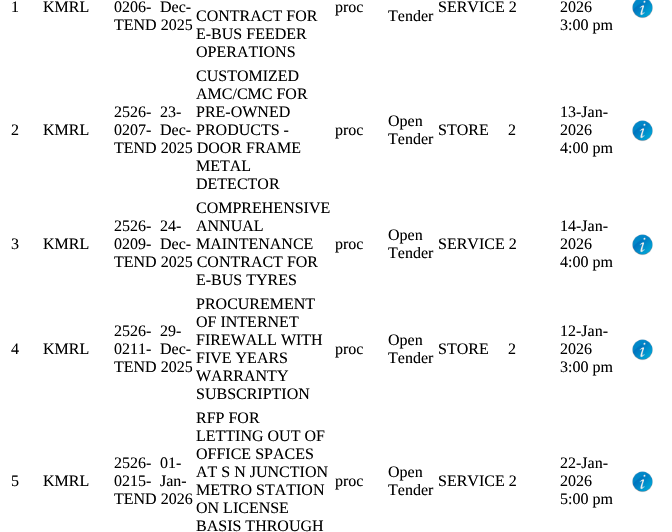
void draw(SkCanvas* c) {
SkPaint p;
p.setAntiAlias(true);
auto F=[&](const char* family, int weight, float size, bool italic = false){SkFontStyle style(weight, SkFontStyle::kNormal_Width,italic ? SkFontStyle::kItalic_Slant : SkFontStyle::kUpright_Slant);SkFont result(fontMgr->matchFamilyStyle(family, style), size);result.setSubpixel(true);return result;};
auto T=[&](const char* s, float x, float y, const SkFont& font){c->drawString(s, x, y, font, p);};
auto I=[&](const char* path, float x, float y, float w, float h){auto image = SkImages::DeferredFromEncodedData(SkData::MakeFromFileName(path));c->drawImageRect(image, SkRect::MakeXYWH(x, y, w, h), SkSamplingOptions());};
c->clear(0xffffffff);
auto f1 = F("Liberation Serif",400,16);
p.setColor(0xff000000);
T("1",11,12,f1);
T("KMRL",43,12,f1);
T("0206-",114,12,f1);
T("TEND 2025",114,30,f1);
I("1.png",632,0,21,19);
T("Dec-",160,12,f1);
T("CONTRACT FOR",196,21,f1);
T("E-BUS FEEDER",196,39,f1);
T("OPERATIONS",196,57,f1);
T("proc",335,12,f1);
T("Tender",388,21,f1);
T("SERVICE 2",438,12,f1);
T("2026",560,12,f1);
T("3:00 pm",560,30,f1);
T("CUSTOMIZED",196,81,f1);
T("AMC/CMC FOR",196,99,f1);
T("PRE-OWNED",196,117,f1);
T("PRODUCTS -",196,135,f1);
T("METAL",196,171,f1);
T("DETECTOR",196,189,f1);
T("2526-",114,117,f1);
T("0207-",114,135,f1);
T("TEND 2025 DOOR FRAME",114,153,f1);
T("2",11,135,f1);
T("KMRL",43,135,f1);
T("23-",160,117,f1);
T("Dec-",160,135,f1);
T("proc",335,135,f1);
T("Open",388,126,f1);
T("Tender",388,144,f1);
T("STORE",438,135,f1);
T("2",508,135,f1);
T("13-Jan-",560,117,f1);
T("2026",560,135,f1);
T("4:00 pm",560,153,f1);
I("2.png",632,120,21,22);
T("COMPREHENSIVE",196,213,f1);
T("ANNUAL",196,231,f1);
T("MAINTENANCE",196,249,f1);
T("E-BUS TYRES",196,285,f1);
T("2526-",114,231,f1);
T("0209-",114,249,f1);
T("TEND 2025 CONTRACT FOR",114,267,f1);
T("3",11,249,f1);
T("KMRL",43,249,f1);
T("24-",160,231,f1);
T("Dec-",160,249,f1);
T("proc",335,249,f1);
T("Open",388,240,f1);
T("Tender",388,258,f1);
T("SERVICE 2",438,249,f1);
T("14-Jan-",560,231,f1);
T("2026",560,249,f1);
T("4:00 pm",560,267,f1);
I("3.png",632,234,21,22);
T("2526-",114,336,f1);
T("0211-",114,354,f1);
T("TEND 2025",114,372,f1);
T("PROCUREMENT",196,309,f1);
T("OF INTERNET",196,327,f1);
T("FIREWALL WITH",196,345,f1);
T("FIVE YEARS",196,363,f1);
T("WARRANTY",196,381,f1);
T("SUBSCRIPTION",196,399,f1);
T("4",11,354,f1);
T("KMRL",43,354,f1);
T("29-",160,336,f1);
T("Dec-",160,354,f1);
T("proc",335,354,f1);
T("Open",388,345,f1);
T("Tender",388,363,f1);
T("STORE",438,354,f1);
T("2",508,354,f1);
T("12-Jan-",560,336,f1);
T("2026",560,354,f1);
T("3:00 pm",560,372,f1);
I("3.png",632,339,21,22);
T("2526-",114,468,f1);
T("0215-",114,486,f1);
T("TEND 2026",114,504,f1);
T("RFP FOR",196,423,f1);
T("LETTING OUT OF",196,441,f1);
T("OFFICE SPACES",196,459,f1);
T("AT S N JUNCTION",196,477,f1);
T("METRO STATION",196,495,f1);
T("ON LICENSE",196,513,f1);
T("BASIS THROUGH",196,531,f1);
T("5",11,486,f1);
T("KMRL",43,486,f1);
T("01-",160,468,f1);
T("Jan-",160,486,f1);
T("proc",335,486,f1);
T("Open",388,477,f1);
T("Tender",388,495,f1);
T("SERVICE 2",438,486,f1);
T("22-Jan-",560,468,f1);
T("2026",560,486,f1);
T("5:00 pm",560,504,f1);
I("3.png",632,471,21,22);
}
